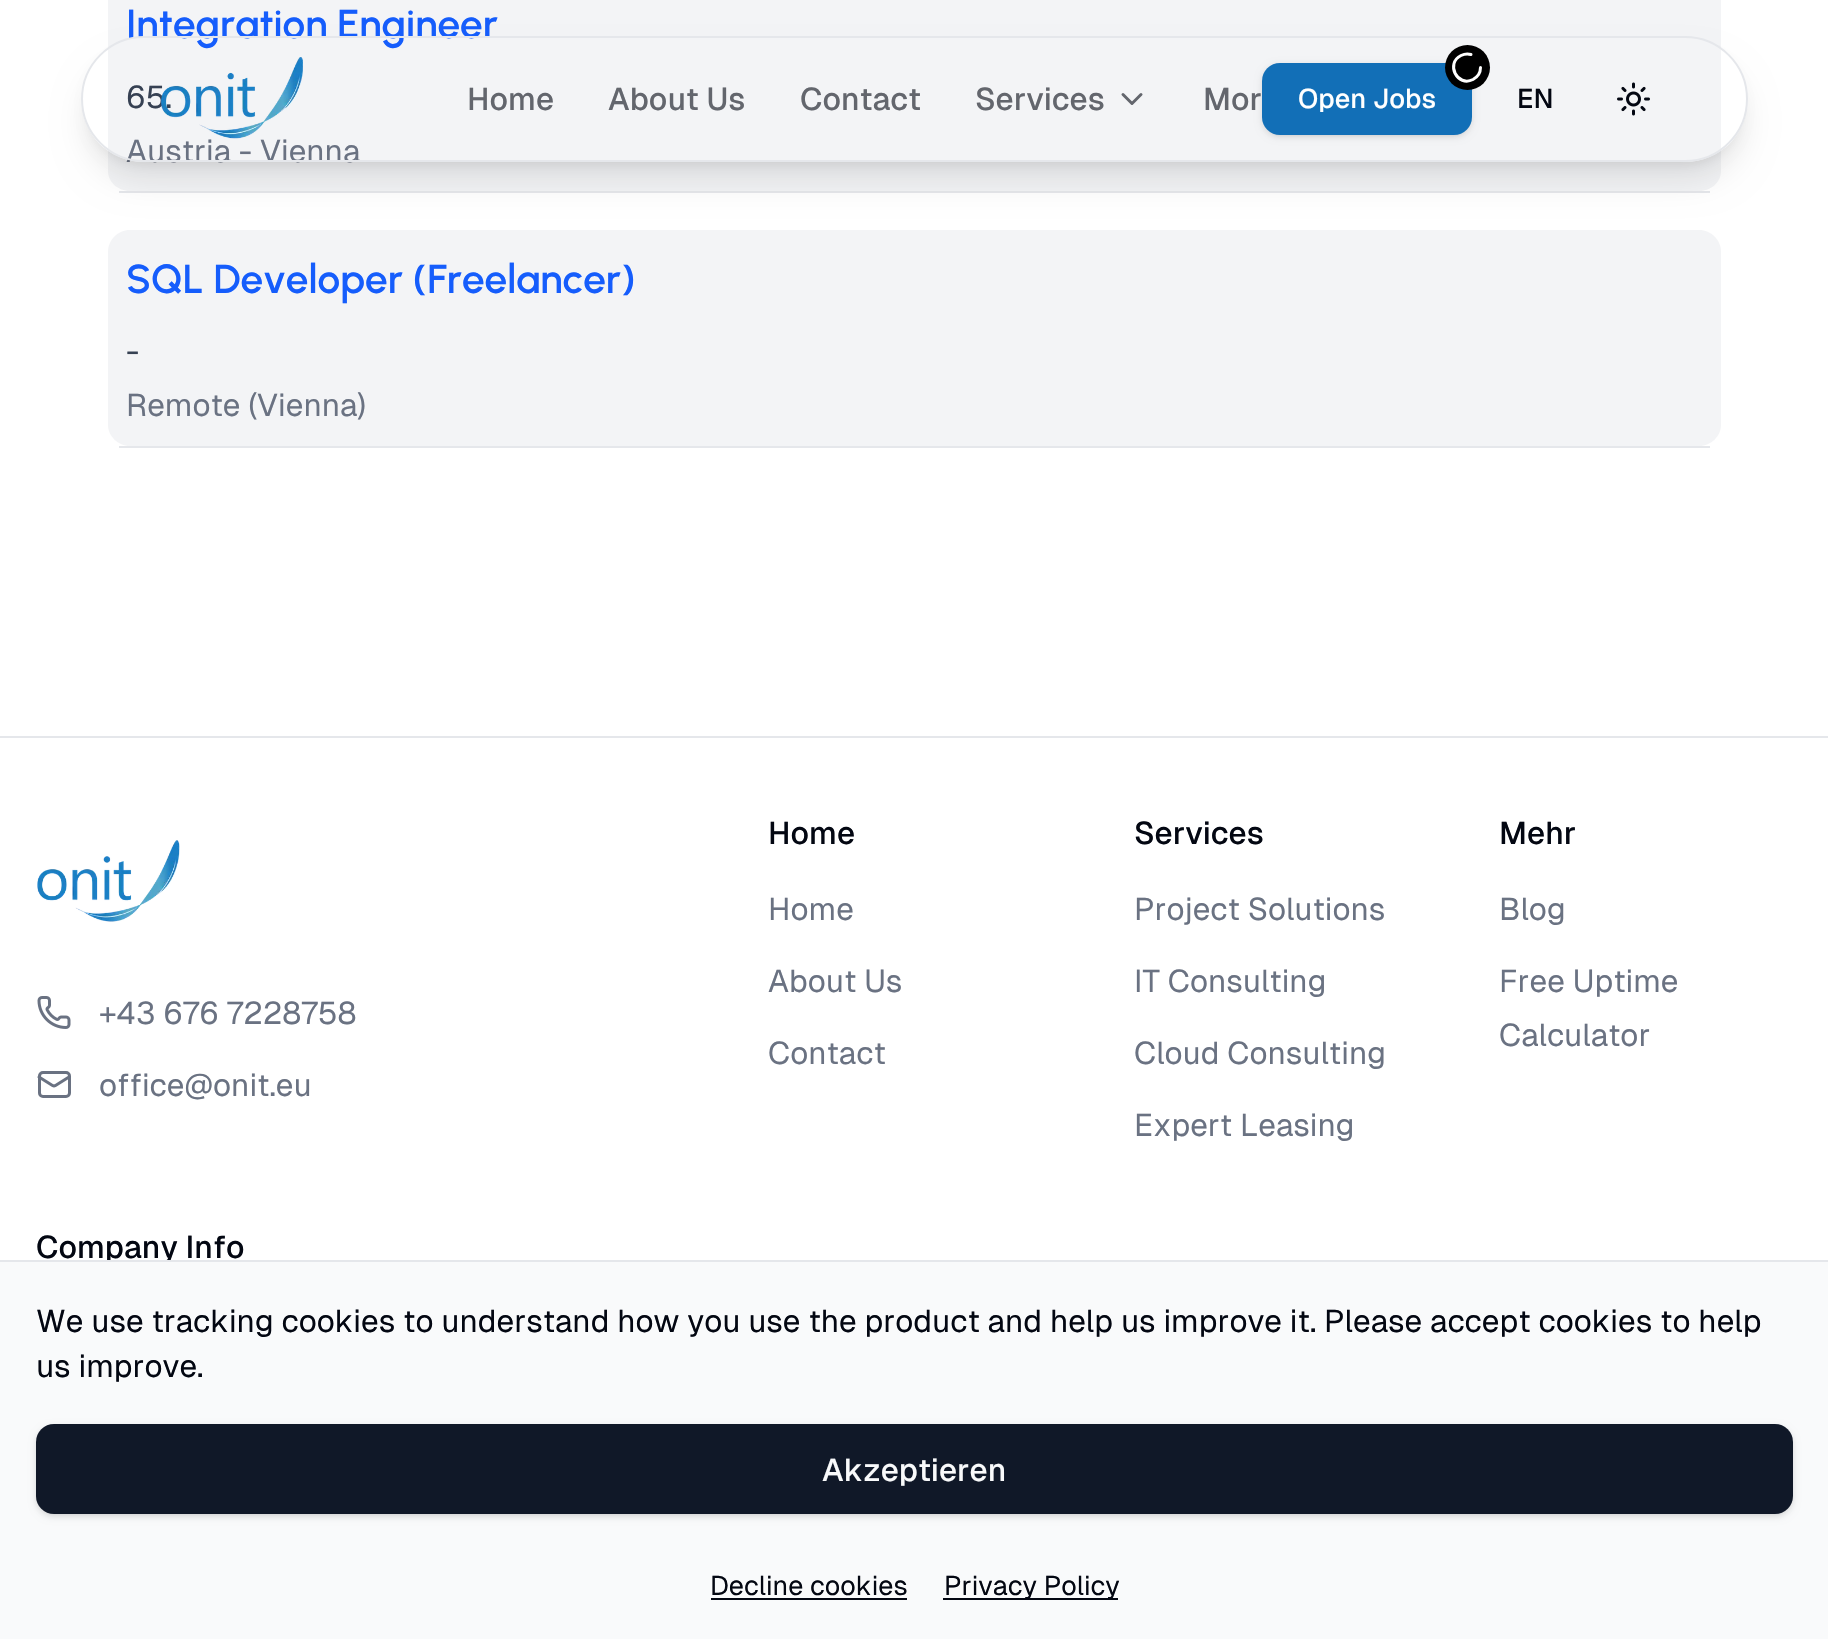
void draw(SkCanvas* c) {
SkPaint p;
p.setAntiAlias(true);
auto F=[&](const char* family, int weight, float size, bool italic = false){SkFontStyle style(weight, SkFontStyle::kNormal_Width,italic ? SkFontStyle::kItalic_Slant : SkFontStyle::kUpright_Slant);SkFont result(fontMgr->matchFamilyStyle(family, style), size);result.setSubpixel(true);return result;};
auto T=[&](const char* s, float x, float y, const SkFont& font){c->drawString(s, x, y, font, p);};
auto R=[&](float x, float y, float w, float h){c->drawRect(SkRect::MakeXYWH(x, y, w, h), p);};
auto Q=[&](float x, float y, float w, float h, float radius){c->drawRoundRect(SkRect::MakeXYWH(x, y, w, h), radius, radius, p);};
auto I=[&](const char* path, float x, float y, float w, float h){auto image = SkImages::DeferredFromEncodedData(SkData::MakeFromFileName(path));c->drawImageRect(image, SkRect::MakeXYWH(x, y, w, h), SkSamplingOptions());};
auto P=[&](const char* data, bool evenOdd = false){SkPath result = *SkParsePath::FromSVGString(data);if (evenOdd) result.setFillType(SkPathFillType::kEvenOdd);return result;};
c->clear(0xffffffff);
p.setColor(0xfff3f4f6);
c->drawPath(P("M130-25h1569c12 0 22 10 22 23v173c0 11-10 20-22 20h-1569c-12 0-22-9-22-20v-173c0-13 10-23 22-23z"),p);
p.setColor(0xffe5e7eb);
R(119,191,1591,2);
auto f1 = F("Urbanist",600,40.5);
p.setColor(0xff155dfc);
T("Integration Engineer",126,38,f1);
auto f2 = F("Geist",400,31.5);
p.setColor(0xff364153);
T("65.",126,108,f2);
p.setColor(0xff6a7282);
T("Austria - Vienna",126,162,f2);
p.setColor(0xfff3f4f6);
c->drawPath(P("M130 230h1569c12 0 22 10 22 22v173c0 11-10 21-22 21h-1569c-12 0-22-10-22-21v-173c0-12 10-22 22-22z"),p);
p.setColor(0xffe5e7eb);
R(119,446,1591,2);
p.setColor(0xff155dfc);
T("SQL Developer (Freelancer)",126,293,f1);
p.setColor(0xff364153);
T("-",126,362,f2);
p.setColor(0xff6a7282);
T("Remote (Vienna)",126,416,f2);
c->save();
c->clipPath(P("M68 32h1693v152h-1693zm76 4h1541c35 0 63 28 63 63c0 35-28 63-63 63h-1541c-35 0-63-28-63-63c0-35 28-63 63-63z",true),true);
p.setColor(0x1a000000);
p.setMaskFilter(SkMaskFilter::MakeBlur(kNormal_SkBlurStyle, 7));
c->drawRoundRect(SkRect::MakeXYWH(90,54,1649,108),54,54,p);
p.setMaskFilter(nullptr);
c->restore();
c->save();
c->clipPath(P("M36 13h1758v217h-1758zm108 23h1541c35 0 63 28 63 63c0 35-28 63-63 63h-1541c-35 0-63-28-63-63c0-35 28-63 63-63z",true),true);
p.setMaskFilter(SkMaskFilter::MakeBlur(kNormal_SkBlurStyle, 17));
c->drawRoundRect(SkRect::MakeXYWH(88,65,1654,113),56.5,56.5,p);
p.setMaskFilter(nullptr);
c->restore();
p.setStroke(true);
p.setStrokeWidth(2);
p.setColor(0xffe5e7eb);
c->drawRoundRect(SkRect::MakeXYWH(82,37,1665,124),62,62,p);
I("1.png",161,57,142,82);
auto f3 = F("Geist",500,31.5);
p.setStroke(false);
p.setColor(0xff63666d);
T("Home",467,110,f3);
T("About Us",608,110,f3);
T("Contact",800,110,f3);
T("Services",975,110,f3);
p.setStroke(true);
p.setStrokeWidth(3);
p.setStrokeCap(SkPaint::kRound_Cap);
p.setStrokeJoin(SkPaint::kRound_Join);
c->drawPath(P("M1123 94.5l9 9l9-9"),p);
p.setStroke(false);
T("Mor",1203,110,f3);
p.setColor(0x1a000000);
p.setMaskFilter(SkMaskFilter::MakeBlur(kNormal_SkBlurStyle, 2));
c->drawRoundRect(SkRect::MakeXYWH(1265,68,204,67),16,16,p);
p.setMaskFilter(nullptr);
p.setMaskFilter(SkMaskFilter::MakeBlur(kNormal_SkBlurStyle, 3.5));
c->drawRoundRect(SkRect::MakeXYWH(1262,65,210,72),18,18,p);
p.setMaskFilter(nullptr);
p.setColor(0xff126fb7);
Q(1262,63,210,72,18);
p.setColor(0xff000000);
c->drawCircle(1467.5,67.5,22.5,p);
p.setStroke(true);
p.setColor(0xffffffff);
c->drawPath(P("M1480.5 67.5c0 5-3 9.5-7.5 12c-15.5 8-28-16-12-24c3-1.5 7-2 10-1"),p);
auto f4 = F("Geist",500,27);
p.setStroke(false);
T("Open Jobs",1298,108,f4);
p.setColor(0xff030712);
T("EN",1517,108,f4);
I("2.png",1617,82,33,34);
p.setColor(0xffe5e7eb);
R(0,736,1828,2);
I("3.png",37,840,143,82);
I("4.png",37,996,34,33);
p.setColor(0xff6a7282);
T("+43 676 7228758",99,1024,f2);
p.setStroke(true);
c->drawPath(P("M69 1077l-13.5 8.5c-1 .5-2 .5-3 0l-13.5-8.5"),p);
p.setStrokeCap(SkPaint::kButt_Cap);
p.setStrokeJoin(SkPaint::kMiter_Join);
c->drawRoundRect(SkRect::MakeXYWH(39.5,1072.5,30,24),3.5,3.5,p);
p.setStroke(false);
T("office@onit.eu",99,1096,f2);
p.setColor(0xff030712);
T("Home",768,844,f3);
p.setColor(0xff6a7282);
T("Home",768,920,f2);
T("About Us",768,992,f2);
T("Contact",768,1064,f2);
p.setColor(0xff030712);
T("Services",1134,844,f3);
p.setColor(0xff6a7282);
T("Project Solutions",1134,920,f2);
T("IT Consulting",1134,992,f2);
T("Cloud Consulting",1134,1064,f2);
T("Expert Leasing",1134,1136,f2);
p.setColor(0xff030712);
T("Mehr",1499,844,f3);
p.setColor(0xff6a7282);
T("Blog",1499,920,f2);
T("Free Uptime",1499,992,f2);
T("Calculator",1499,1046,f2);
p.setColor(0xff030712);
T("Company Info",36,1258,f3);
p.setColor(0xfff9fafb);
R(0,1262,1828,377);
p.setColor(0xffe5e7eb);
R(0,1260,1828,2);
p.setColor(0xff030712);
T("We use tracking cookies to understand how you use the product and help us improve it. Please accept cookies to help",36,1332,f2);
T("us improve.",36,1377,f2);
p.setColor(0x1a000000);
p.setMaskFilter(SkMaskFilter::MakeBlur(kNormal_SkBlurStyle, 2));
c->drawRoundRect(SkRect::MakeXYWH(38,1429,1753,85),16,16,p);
p.setMaskFilter(nullptr);
p.setMaskFilter(SkMaskFilter::MakeBlur(kNormal_SkBlurStyle, 3.5));
c->drawRoundRect(SkRect::MakeXYWH(36,1427,1757,90),18,18,p);
p.setMaskFilter(nullptr);
p.setColor(0xff101828);
Q(36,1424,1757,90,18);
p.setColor(0xfff9fafb);
T("Akzeptieren",822,1481,f3);
auto f5 = F("Geist",400,27);
p.setColor(0xff030712);
T("Decline cookies",710,1595,f5);
R(711,1598,196,2);
R(943,1598,175,2);
T("Privacy Policy",944,1595,f5);
}
